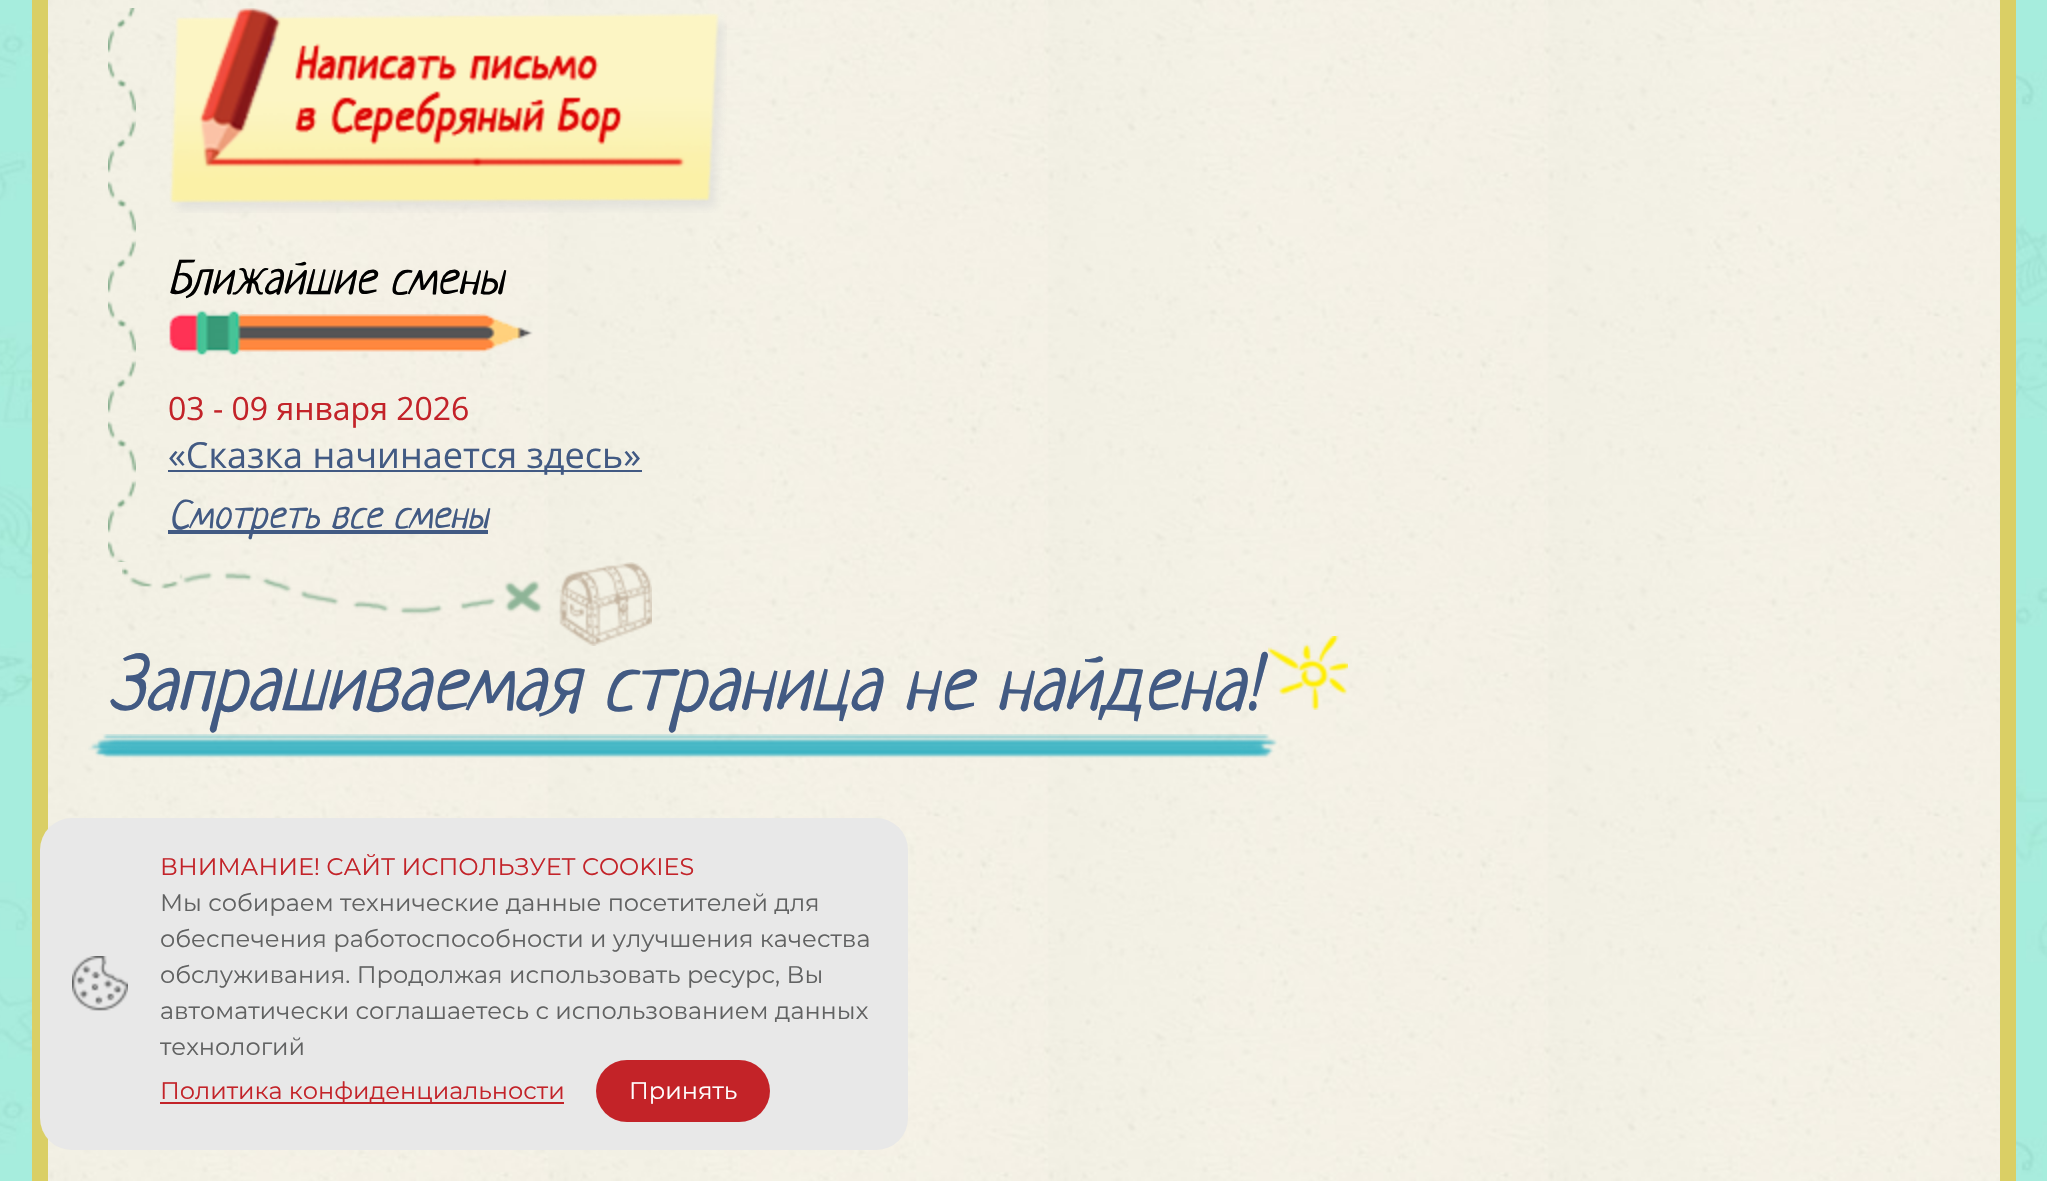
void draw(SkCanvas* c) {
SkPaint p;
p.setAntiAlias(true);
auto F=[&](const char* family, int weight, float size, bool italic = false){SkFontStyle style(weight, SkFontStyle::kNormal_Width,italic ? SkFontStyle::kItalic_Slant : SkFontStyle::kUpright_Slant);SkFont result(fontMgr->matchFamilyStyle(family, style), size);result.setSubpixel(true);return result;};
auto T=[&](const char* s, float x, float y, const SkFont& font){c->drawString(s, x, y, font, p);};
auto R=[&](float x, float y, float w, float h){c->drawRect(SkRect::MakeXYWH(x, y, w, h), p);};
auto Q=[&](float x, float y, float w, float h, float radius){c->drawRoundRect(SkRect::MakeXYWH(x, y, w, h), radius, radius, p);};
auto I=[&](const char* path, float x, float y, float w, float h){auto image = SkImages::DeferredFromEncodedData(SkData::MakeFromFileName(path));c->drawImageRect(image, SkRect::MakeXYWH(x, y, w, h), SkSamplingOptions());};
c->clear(0xffffffff);
I("1.png",0,0,2047,1181);
I("2.png",32,0,1984,1181);
p.setStroke(true);
p.setStrokeWidth(16);
p.setColor(0xffdacf65);
c->drawRoundRect(SkRect::MakeXYWH(40,-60,1968,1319),62,62,p);
I("3.png",108,8,28,554);
I("4.png",169,8,558,205);
auto f1 = F("Neucha",400,48,true);
p.setStroke(false);
p.setColor(0xff000000);
T("Ближайшие смены",168,294,f1);
I("5.png",242,314,238,38);
I("6.png",169,310,73,46);
I("7.png",480,313,53,40);
auto f2 = F("Open Sans",400,32);
p.setColor(0xffc32329);
T("03 - 09 января 2026",168,420,f2);
p.setColor(0xff425a83);
R(168,470,474,2);
auto f3 = F("Open Sans",400,36);
T("«Сказка начинается здесь»",168,468,f3);
R(168,530,320,4);
auto f4 = F("Neucha",400,40,true);
T("Смотреть все смены",168,528,f4);
I("8.png",122,562,530,84);
auto f5 = F("Neucha",400,80,true);
T("Запрашиваемая страница не найдена!",108,710,f5);
I("9.png",1268,636,80,74);
I("10.png",132,734,1102,24);
I("11.png",88,734,44,24);
I("12.png",1234,734,44,24);
p.setColor(0xffe8e8e8);
Q(40,818,868,332,32);
I("13.png",72,956,56,55);
auto f6 = F("Montserrat",400,24);
p.setColor(0xffc32329);
T("ВНИМАНИЕ! САЙТ ИСПОЛЬЗУЕТ COOKIES",160,875,f6);
p.setColor(0xff616262);
T("Мы собираем технические данные посетителей для",160,911,f6);
T("обеспечения работоспособности и улучшения качества",160,947,f6);
T("обслуживания. Продолжая использовать ресурс, Вы",160,983,f6);
T("автоматически соглашаетесь с использованием данных",160,1019,f6);
T("технологий",160,1055,f6);
p.setColor(0xffc32328);
R(160,1102,404,2);
p.setColor(0xffc32329);
T("Политика конфиденциальности",160,1099,f6);
p.setColor(0xffc32328);
Q(596,1060,174,62,31);
p.setColor(0xffffffff);
T("Принять",629,1099,f6);
}
